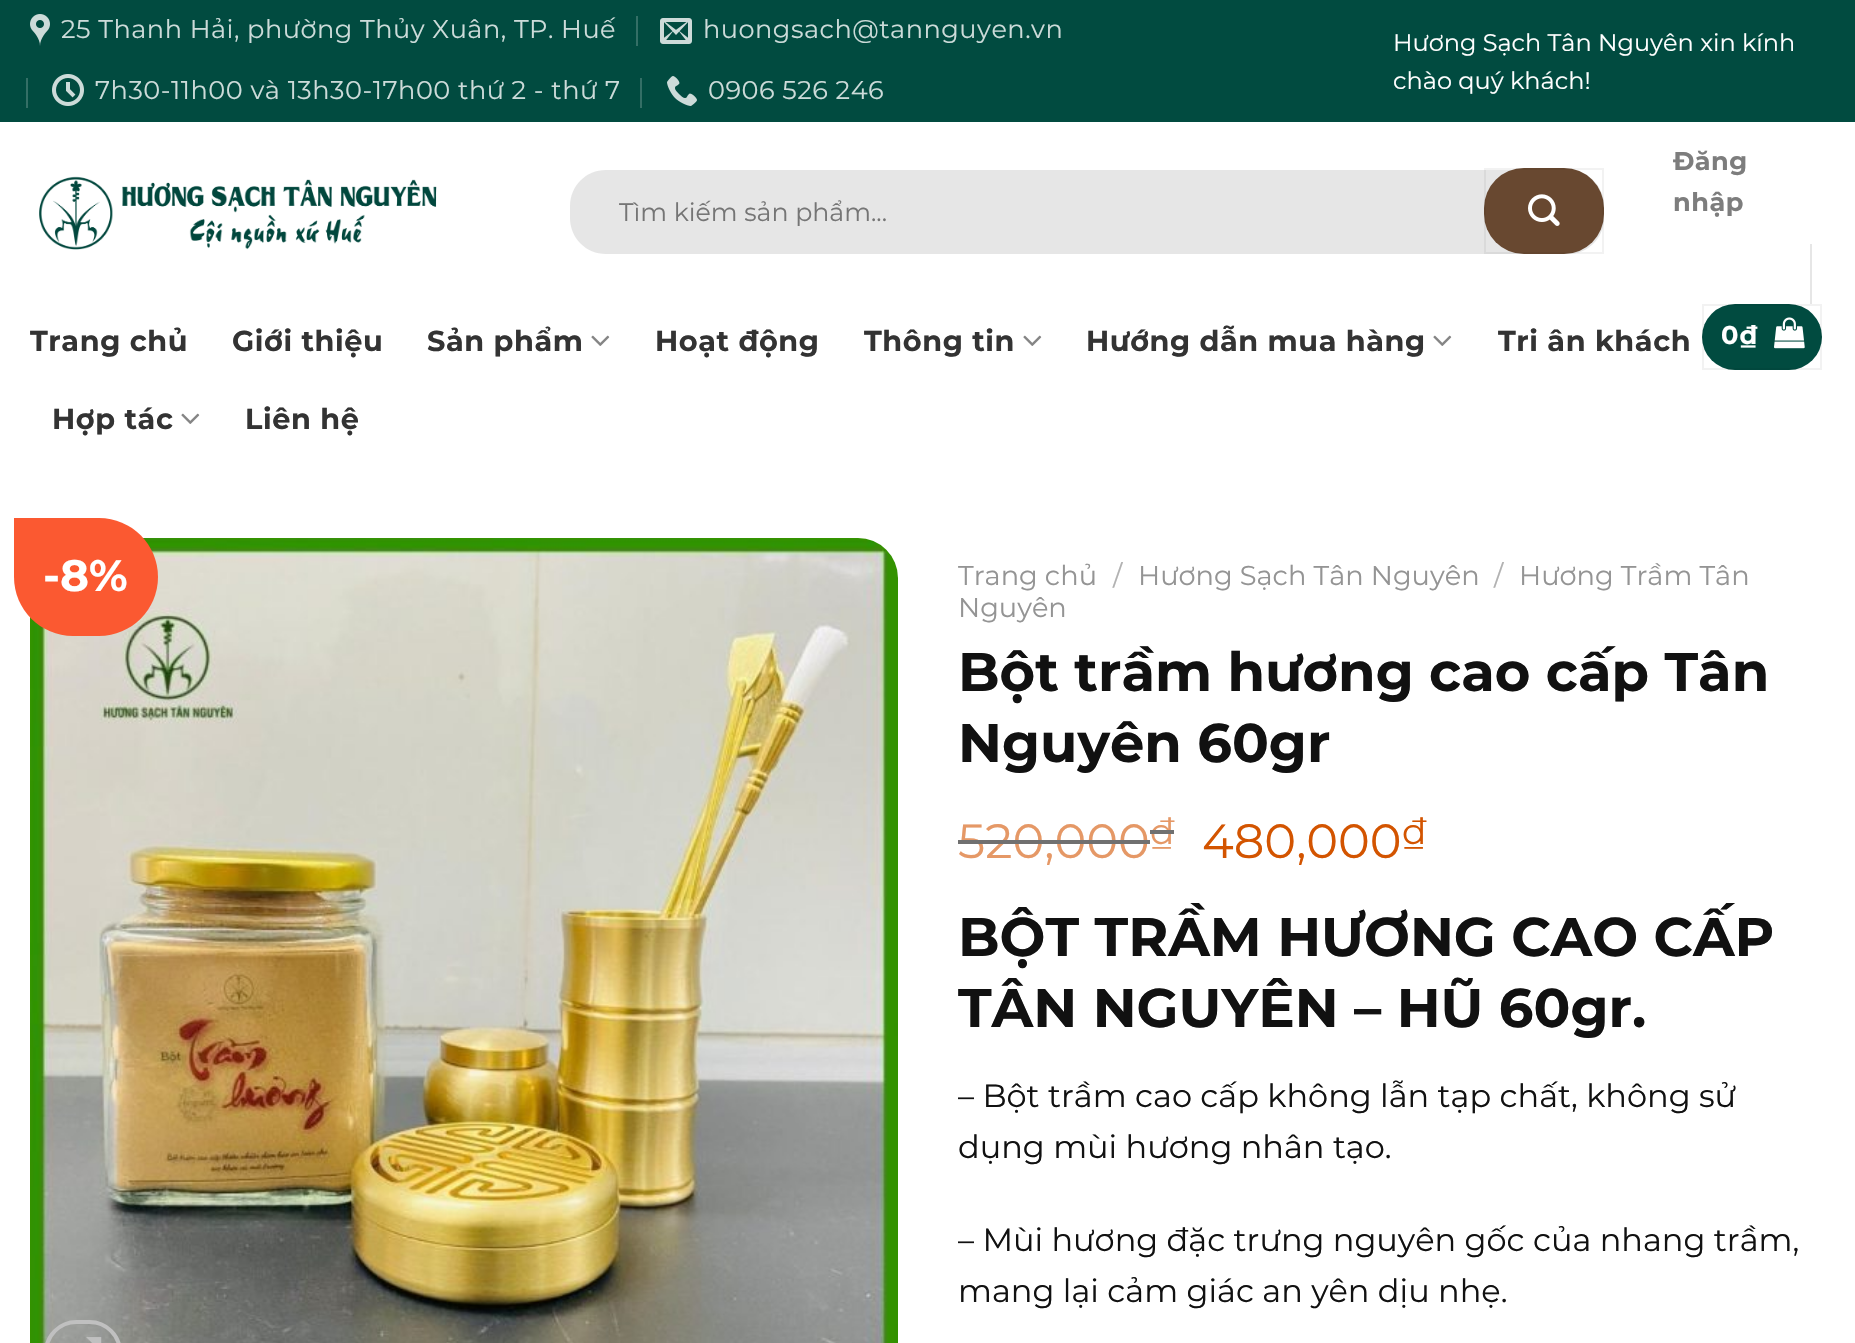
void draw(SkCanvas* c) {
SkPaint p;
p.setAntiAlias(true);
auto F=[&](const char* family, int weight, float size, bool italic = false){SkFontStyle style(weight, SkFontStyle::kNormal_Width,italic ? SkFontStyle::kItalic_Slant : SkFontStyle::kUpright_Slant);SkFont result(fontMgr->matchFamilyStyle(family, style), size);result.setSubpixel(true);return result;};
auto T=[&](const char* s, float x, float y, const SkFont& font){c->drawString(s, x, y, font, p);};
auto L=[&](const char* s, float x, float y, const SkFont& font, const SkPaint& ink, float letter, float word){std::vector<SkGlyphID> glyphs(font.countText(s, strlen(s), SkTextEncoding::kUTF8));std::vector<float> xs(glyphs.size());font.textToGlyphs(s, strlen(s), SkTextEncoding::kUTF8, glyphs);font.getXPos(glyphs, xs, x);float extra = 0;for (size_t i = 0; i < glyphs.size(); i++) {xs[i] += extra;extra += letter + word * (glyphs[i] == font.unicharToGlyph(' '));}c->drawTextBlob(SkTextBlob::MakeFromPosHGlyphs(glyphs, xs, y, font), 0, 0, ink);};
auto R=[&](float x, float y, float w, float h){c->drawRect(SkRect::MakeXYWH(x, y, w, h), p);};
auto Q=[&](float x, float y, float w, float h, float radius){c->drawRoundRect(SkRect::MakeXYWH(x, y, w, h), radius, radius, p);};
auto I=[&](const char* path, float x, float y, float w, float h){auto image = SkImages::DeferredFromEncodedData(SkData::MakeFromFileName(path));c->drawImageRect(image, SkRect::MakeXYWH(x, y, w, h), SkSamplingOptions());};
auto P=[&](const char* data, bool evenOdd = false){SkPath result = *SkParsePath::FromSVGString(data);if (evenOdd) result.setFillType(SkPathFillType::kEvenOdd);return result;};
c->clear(0xffffffff);
p.setColor(0xff014b40);
R(0,0,1855,122);
I("1.png",30,14,20,32);
auto f1 = F("Montserrat",400,25.6);
p.setColor(0xffccdbd9);
L("25 Thanh Hải, phường Thủy Xuân, TP. Huế",61,38,f1,p,.5,0);
p.setColor(0xff346f66);
R(636,16,2,30);
I("2.png",660,18,32,26);
p.setColor(0xffccdbd9);
L("huongsach@tannguyen.vn",703,38,f1,p,.5,0);
p.setColor(0xff346f66);
R(26,78,2,30);
I("3.png",52,74,32,32);
p.setColor(0xffccdbd9);
L("7h30-11h00 và 13h30-17h00 thứ 2 - thứ 7",95,99,f1,p,.5,0);
p.setColor(0xff346f66);
R(640,78,2,30);
I("4.png",667,76,30,30);
p.setColor(0xffccdbd9);
L("0906 526 246",708,99,f1,p,.5,0);
auto f2 = F("Montserrat",400,24);
p.setColor(0xffffffff);
T("Hương Sạch Tân Nguyên xin kính",1393,51,f2);
T("chào quý khách!",1393,89,f2);
I("5.png",39,176,398,74);
p.setColor(0xffe6e6e6);
c->drawPath(P("M606 170c-20 0-36 16-36 36v12c0 20 16 36 36 36h962c20 0 36-16 36-36v-12c0-20-16-36-36-36z"),p);
auto f3 = F("Montserrat",400,25.25);
p.setColor(0xff757575);
T("Tìm kiếm sản phẩm...",619,221,f3);
p.setColor(0xff684830);
Q(1484,168,120,86,40);
p.setStroke(true);
p.setStrokeWidth(2);
p.setColor(0x0d000000);
c->drawRect(SkRect::MakeXYWH(1485,169,118,84),p);
I("6.png",1528,194,32,32);
auto f4 = F("Montserrat",700,25.6);
p.setStroke(false);
p.setColor(0xff7d7d7d);
L("Đăng",1673,170,f4,p,.5,0);
L("nhập",1673,211,f4,p,.5,0);
p.setColor(0xffe6e6e6);
R(1810,244,2,60);
p.setColor(0xff014b40);
Q(1702,304,120,66,33);
p.setStroke(true);
p.setColor(0x0d000000);
c->drawRect(SkRect::MakeXYWH(1703,305,118,64),p);
p.setStroke(false);
p.setColor(0xffffffff);
L("0₫",1721,344,f4,p,1,0);
I("7.png",1774,317,31,32);
auto f5 = F("Montserrat",700,28.75);
p.setColor(0xff333333);
L("Trang chủ",30,351,f5,p,.6,0);
L("Giới thiệu",232,351,f5,p,.6,0);
L("Sản phẩm",427,351,f5,p,.6,0);
I("8.png",591,335,19,11);
L("Hoạt động",655,351,f5,p,.6,0);
L("Thông tin",864,351,f5,p,.6,0);
I("8.png",1023,335,19,11);
L("Hướng dẫn mua hàng",1086,351,f5,p,.6,0);
I("8.png",1433,335,19,11);
L("Tri ân khách",1498,351,f5,p,.6,0);
L("Hợp tác",52,429,f5,p,.6,0);
I("8.png",181,413,19,11);
L("Liên hệ",245,429,f5,p,.6,0);
I("9.png",30,538,868,805);
p.setColor(0xfffb5931);
c->drawPath(P("M14 518h85c32.5 0 59 26.5 59 59c0 32.5-26.5 59-59 59h-26c-32.5 0-59-26.5-59-59z"),p);
auto f6 = F("Montserrat",700,44);
p.setColor(0xffffffff);
T("-8%",43,591,f6);
p.setStroke(true);
p.setStrokeWidth(4);
p.setColor(0xffc0c0c0);
c->drawRoundRect(SkRect::MakeXYWH(46,1322,74,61),36,36,p);
I("10.png",86,1337,16,6);
auto f7 = F("Montserrat",400,27.25);
p.setStroke(false);
p.setColor(0xff949494);
T("Trang chủ",958,585,f7);
p.setColor(0xffb2b2b2);
T("/",1113,585,f7);
p.setColor(0xff949494);
T("Hương Sạch Tân Nguyên",1138,585,f7);
p.setColor(0xffb2b2b2);
T("/",1494,585,f7);
p.setColor(0xff949494);
T("Hương Trầm Tân",1519,585,f7);
T("Nguyên",958,617,f7);
auto f8 = F("Montserrat",700,54.4);
p.setColor(0xff111111);
T("Bột trầm hương cao cấp Tân",958,691,f8);
T("Nguyên 60gr",958,762,f8);
auto f9 = F("Montserrat",400,48);
p.setColor(0xffe59866);
T("520,000",958,858,f9);
p.setColor(0xff707070);
R(958,840,192,4);
auto f10 = F("Montserrat",400,36);
p.setColor(0xffe59866);
T("₫",1150,844,f10);
p.setColor(0xff707070);
R(1150,830,24,4);
p.setColor(0xffd35400);
T("480,000",1202,858,f9);
T("₫",1402,844,f10);
p.setColor(0xff111111);
T("BỘT TRẦM HƯƠNG CAO CẤP",958,956,f8);
T("TÂN NGUYÊN – HŨ 60gr.",958,1027,f8);
auto f11 = F("Montserrat",400,32);
T("– Bột trầm cao cấp không lẫn tạp chất, không sử",958,1107,f11);
T("dụng mùi hương nhân tạo.",958,1158,f11);
T("– Mùi hương đặc trưng nguyên gốc của nhang trầm,",958,1251,f11);
T("mang lại cảm giác an yên dịu nhẹ.",958,1302,f11);
}
